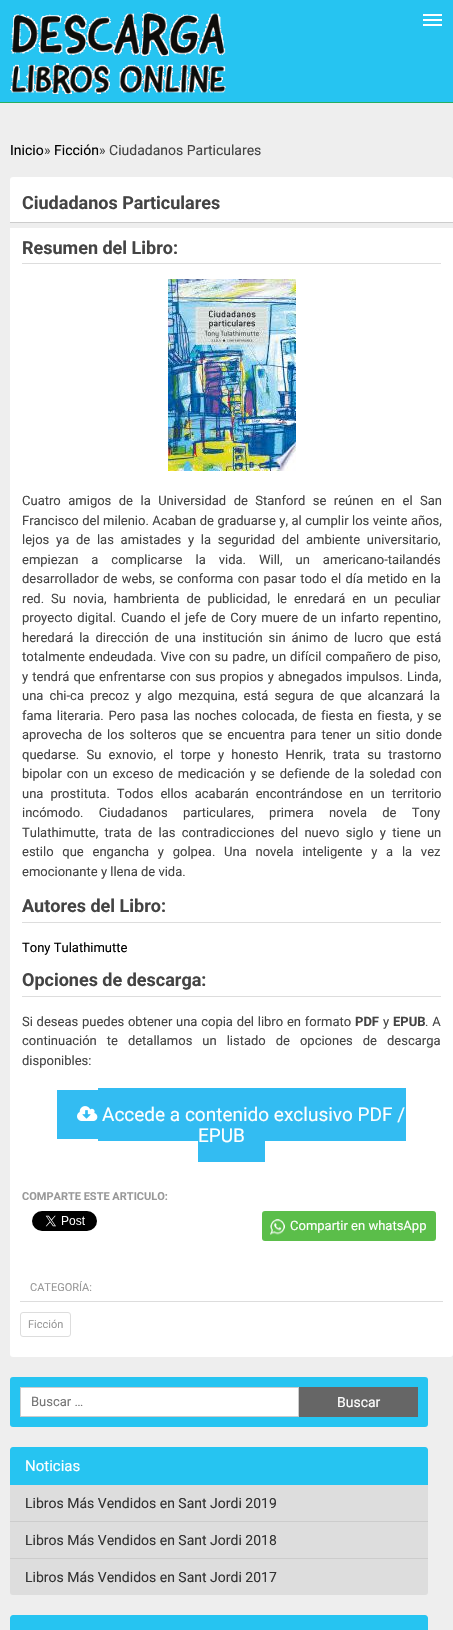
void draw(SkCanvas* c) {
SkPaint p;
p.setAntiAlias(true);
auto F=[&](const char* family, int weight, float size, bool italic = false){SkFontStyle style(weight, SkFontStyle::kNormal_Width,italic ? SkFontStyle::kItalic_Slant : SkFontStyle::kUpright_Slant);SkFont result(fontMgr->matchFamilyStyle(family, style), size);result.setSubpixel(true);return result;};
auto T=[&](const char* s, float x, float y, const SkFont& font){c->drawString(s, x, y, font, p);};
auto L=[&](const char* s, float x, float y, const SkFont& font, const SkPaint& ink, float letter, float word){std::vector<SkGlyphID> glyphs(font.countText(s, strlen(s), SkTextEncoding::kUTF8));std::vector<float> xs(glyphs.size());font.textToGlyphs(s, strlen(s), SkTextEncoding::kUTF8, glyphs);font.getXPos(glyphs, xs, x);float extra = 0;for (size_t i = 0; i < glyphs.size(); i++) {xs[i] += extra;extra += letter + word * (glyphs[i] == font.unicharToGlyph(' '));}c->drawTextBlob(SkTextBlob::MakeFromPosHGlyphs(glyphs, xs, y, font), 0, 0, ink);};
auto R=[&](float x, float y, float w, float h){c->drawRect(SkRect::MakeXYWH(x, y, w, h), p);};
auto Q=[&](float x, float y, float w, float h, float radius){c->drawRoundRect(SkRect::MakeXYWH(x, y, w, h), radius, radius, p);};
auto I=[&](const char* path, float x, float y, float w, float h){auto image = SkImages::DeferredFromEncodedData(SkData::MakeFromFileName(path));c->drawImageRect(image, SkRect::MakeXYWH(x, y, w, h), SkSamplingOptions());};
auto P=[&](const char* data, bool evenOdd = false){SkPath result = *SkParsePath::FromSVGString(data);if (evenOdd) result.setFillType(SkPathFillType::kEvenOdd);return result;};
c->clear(0xffeeeeee);
p.setColor(0xff26c4f1);
R(0,0,453,102);
p.setColor(0xff27ae60);
R(0,102,453,1);
I("1.png",10,12,216,82);
p.setColor(0xffffffff);
R(423,14,19,2);
R(423,19,19,2);
R(423,24,19,2);
auto f1 = F("Roboto",400,14);
p.setColor(0xff000000);
T("Inicio",10,155,f1);
p.setColor(0xff444444);
T("»",44,155,f1);
p.setColor(0xff000000);
T("Ficción",54,155,f1);
p.setColor(0xff444444);
T("» Ciudadanos Particulares",99,155,f1);
p.setColor(0xffffffff);
Q(10,177,443,1180,3);
p.setColor(0xffcccccc);
R(10,222,443,1);
p.setColor(0xffeeeeee);
R(10,223,443,5);
auto f2 = F("Roboto",700,18);
p.setColor(0xff444444);
T("Ciudadanos Particulares",22,209,f2);
p.setColor(0xffdddddd);
R(22,263,419,1);
p.setColor(0xff444444);
T("Resumen del Libro:",22,254,f2);
I("2.png",168,279,128,192);
auto f3 = F("Roboto",400,13);
L("Cuatro amigos de la Universidad de Stanford se reúnen en el San",22,505,f3,p,0,4.25);
L("Francisco del milenio. Acaban de graduarse y, al cumplir los veinte años,",22,525,f3,p,0,.25);
L("lejos ya de las amistades y la seguridad del ambiente universitario,",22,544,f3,p,0,3.5);
L("empiezan a complicarse la vida. Will, un americano-tailandés",22,564,f3,p,0,9.75);
L("desarrollador de webs, se conforma con pasar todo el día metido en la",22,583,f3,p,0,1.1);
L("red. Su novia, hambrienta de publicidad, le enredará en un peculiar",22,603,f3,p,0,3.75);
L("proyecto digital. Cuando el jefe de Cory muere de un infarto repentino,",22,622,f3,p,0,1.5);
L("heredará la dirección de una institución sin ánimo de lucro que está",22,642,f3,p,0,2.75);
L("totalmente endeudada. Vive con su padre, un difícil compañero de piso,",22,661,f3,p,0,.75);
L("y tendrá que enfrentarse con sus propios y abnegados impulsos. Linda,",22,681,f3,p,0,.9);
L("una chi-ca precoz y algo mezquina, está segura de que alcanzará la",22,700,f3,p,0,2.75);
L("fama literaria. Pero pasa las noches colocada, de fiesta en fiesta, y se",22,720,f3,p,0,1.5);
L("aprovecha de los solteros que se encuentra para tener un sitio donde",22,739,f3,p,0,2);
L("quedarse. Su exnovio, el torpe y honesto Henrik, trata su trastorno",22,759,f3,p,0,4);
L("bipolar con un exceso de medicación y se defiende de la soledad con",22,778,f3,p,0,1.75);
L("una prostituta. Todos ellos acabarán encontrándose en un territorio",22,798,f3,p,0,3.75);
L("incómodo. Ciudadanos particulares, primera novela de Tony",22,817,f3,p,0,12);
L("Tulathimutte, trata de las contradicciones del nuevo siglo y tiene un",22,837,f3,p,0,3.1);
L("estilo que engancha y golpea. Una novela inteligente y a la vez",22,856,f3,p,0,5.5);
T("emocionante y llena de vida.",22,876,f3);
p.setColor(0xffdddddd);
R(22,922,419,1);
p.setColor(0xff444444);
T("Autores del Libro:",22,912,f2);
p.setColor(0xff000000);
T("Tony Tulathimutte",22,952,f3);
p.setColor(0xffdddddd);
R(22,996,419,1);
p.setColor(0xff444444);
T("Opciones de descarga:",22,986,f2);
L("Si deseas puedes obtener una copia del libro en formato",22,1026,f3,p,0,.5);
auto f4 = F("Roboto",700,13);
T("PDF",355,1026,f4);
T("y",383,1026,f3);
T("EPUB",393,1026,f4);
L(". A",425,1026,f3,p,0,.5);
L("continuación te detallamos un listado de opciones de descarga",22,1045,f3,p,0,6.75);
T("disponibles:",22,1065,f3);
p.setColor(0xff33bcf2);
R(57,1090,41,49);
R(98,1088,308,53);
R(198,1141,67,21);
I("3.png",77,1106,21,15);
auto f5 = F("Roboto",400,19);
p.setColor(0xffffffff);
T("Accede a contenido exclusivo PDF /",102,1121,f5);
T("EPUB",198,1142,f5);
auto f6 = F("Roboto",700,11);
p.setColor(0xff999999);
T("COMPARTE ESTE ARTICULO:",22,1200,f6);
I("4.png",32,1211,65,20);
p.setColor(0xff5bbe4a);
Q(262,1211,174,30,3);
I("5.png",270,1219,15,16);
p.setColor(0xffffffff);
T("Compartir en whatsApp",290,1230,f3);
p.setColor(0xffdddddd);
R(20,1301,423,1);
auto f7 = F("Roboto",400,11);
p.setColor(0xff999999);
T("CATEGORÍA:",30,1291,f7);
p.setStroke(true);
p.setStrokeWidth(1);
p.setColor(0xffdddddd);
c->drawRoundRect(SkRect::MakeXYWH(20.5,1312.5,50,24),2.5,2.5,p);
p.setStroke(false);
p.setColor(0xff999999);
T("Ficción",28,1328,f7);
p.setColor(0xff26c4f1);
Q(10,1377,418,50,3);
p.setColor(0xffffffff);
c->drawRect(SkRect::MakeXYWH(20.5,1387.5,278,29),p);
p.setStroke(true);
p.setColor(0xffcccccc);
c->drawRect(SkRect::MakeXYWH(20.5,1387.5,278,29),p);
p.setStroke(false);
p.setColor(0xff757575);
T("Buscar …",31,1406,f3);
p.setColor(0xff666666);
R(299,1387,119,30);
p.setColor(0xffffffff);
T("Buscar",337,1407,f1);
p.setColor(0xffdddddd);
Q(10,1447,418,148,3);
p.setColor(0xff26c4f1);
c->drawPath(P("M13 1447h412c1.5 0 3 1.5 3 3v35h-418v-35c0-1.5 1.5-3 3-3z"),p);
auto f8 = F("Roboto",400,15);
p.setColor(0xffffffff);
T("Noticias",25,1471,f8);
p.setColor(0xffcccccc);
R(10,1521,418,1);
p.setColor(0xff333333);
T("Libros Más Vendidos en Sant Jordi 2019",25,1508,f1);
p.setColor(0xffcccccc);
R(10,1558,418,1);
p.setColor(0xff333333);
T("Libros Más Vendidos en Sant Jordi 2018",25,1545,f1);
T("Libros Más Vendidos en Sant Jordi 2017",25,1582,f1);
p.setColor(0xff26c4f1);
c->drawPath(P("M13 1615h412c1.5 0 3 1.5 3 3v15h-418v-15c0-1.5 1.5-3 3-3z"),p);
}
